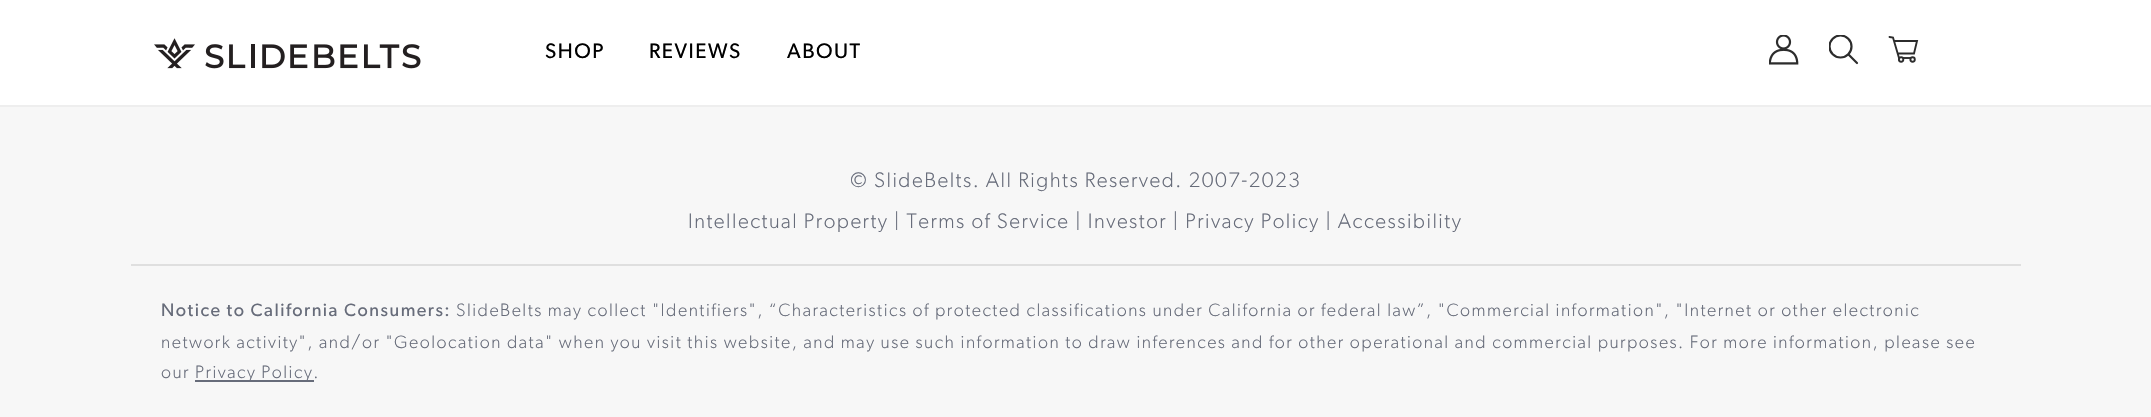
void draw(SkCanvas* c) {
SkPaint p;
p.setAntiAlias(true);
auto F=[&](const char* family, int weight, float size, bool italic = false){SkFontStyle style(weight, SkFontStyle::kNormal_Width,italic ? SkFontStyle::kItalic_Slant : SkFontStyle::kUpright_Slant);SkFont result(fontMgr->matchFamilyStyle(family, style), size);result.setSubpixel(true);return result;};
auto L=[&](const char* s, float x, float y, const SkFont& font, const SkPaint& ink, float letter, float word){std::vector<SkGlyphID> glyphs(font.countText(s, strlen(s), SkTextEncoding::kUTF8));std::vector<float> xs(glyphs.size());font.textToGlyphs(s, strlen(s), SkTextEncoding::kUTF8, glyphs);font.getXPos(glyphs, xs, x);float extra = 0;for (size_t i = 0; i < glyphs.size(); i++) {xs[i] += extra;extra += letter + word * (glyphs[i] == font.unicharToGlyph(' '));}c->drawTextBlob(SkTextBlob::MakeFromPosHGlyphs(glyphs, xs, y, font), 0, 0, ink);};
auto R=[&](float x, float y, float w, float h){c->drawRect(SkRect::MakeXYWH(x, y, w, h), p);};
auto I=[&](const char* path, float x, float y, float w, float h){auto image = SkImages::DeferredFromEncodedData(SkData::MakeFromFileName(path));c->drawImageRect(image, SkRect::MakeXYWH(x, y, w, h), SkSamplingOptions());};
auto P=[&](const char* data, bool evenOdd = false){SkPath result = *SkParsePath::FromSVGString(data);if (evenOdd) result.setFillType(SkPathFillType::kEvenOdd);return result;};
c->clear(0xfff7f7f7);
p.setColor(0xffeeeeee);
R(0,105,2151,2);
p.setColor(0xffffffff);
R(0,0,2151,105);
I("1.png",154,38,267,31);
auto f1 = F("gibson",400,21);
p.setColor(0xff000000);
L("SHOP",545,58,f1,p,1.5,0);
L("REVIEWS",649,58,f1,p,1.5,0);
L("ABOUT",787,58,f1,p,1.5,0);
I("2.png",1769,35,30,30);
c->save();
c->clipRect(SkRect::MakeXYWH(1829,35,30,30));
p.setStroke(true);
p.setStrokeWidth(2.2);
p.setColor(0xff2c2c2c);
c->drawCircle(1840.5,46.5,11,p);
c->restore();
p.setStrokeCap(SkPaint::kRound_Cap);
p.setColor(0xfc2c2c2c);
c->drawPath(P("M1848.5 54.5l8.5 8.5"),p);
p.setStrokeWidth(1.9);
p.setStrokeCap(SkPaint::kButt_Cap);
p.setColor(0xff2c2c2c);
c->drawCircle(1901.1,59.5,2.2,p);
c->drawCircle(1912.6,59.5,2.2,p);
p.setStrokeCap(SkPaint::kRound_Cap);
c->drawPath(P("M1889.5 37l3.5 .5l6 20.5m-1-4.5h16l3-12.5h-23"),p);
p.setStroke(false);
p.setColor(0xf22c2c2c);
R(1903,57,8,2);
auto f2 = F("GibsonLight",400,21);
p.setColor(0xff676c7a);
L("© SlideBelts. All Rights Reserved. 2007-2023",850,187,f2,p,1.5,0);
L("Intellectual Property | Terms of Service | Investor | Privacy Policy | Accessibility",688,228,f2,p,1.5,0);
p.setColor(0xffdfdfdf);
R(131,264,1890,2);
auto f3 = F("gibson",400,18);
p.setColor(0xff676c7a);
L("Notice to California Consumers:",161,316,f3,p,1.5,0);
auto f4 = F("GibsonLight",400,18);
L("SlideBelts may collect \"Identifiers\", “Characteristics of protected classifications under California or federal law”, \"Commercial information\", \"Internet or other electronic",456,316,f4,p,1.5,0);
L("network activity\", and/or \"Geolocation data\" when you visit this website, and may use such information to draw inferences and for other operational and commercial purposes. For more information, please see",161,348,f4,p,1.5,0);
L("our",161,378,f4,p,1.5,0);
R(195,380,119,2);
L("Privacy Policy.",195,378,f4,p,1.5,0);
}
